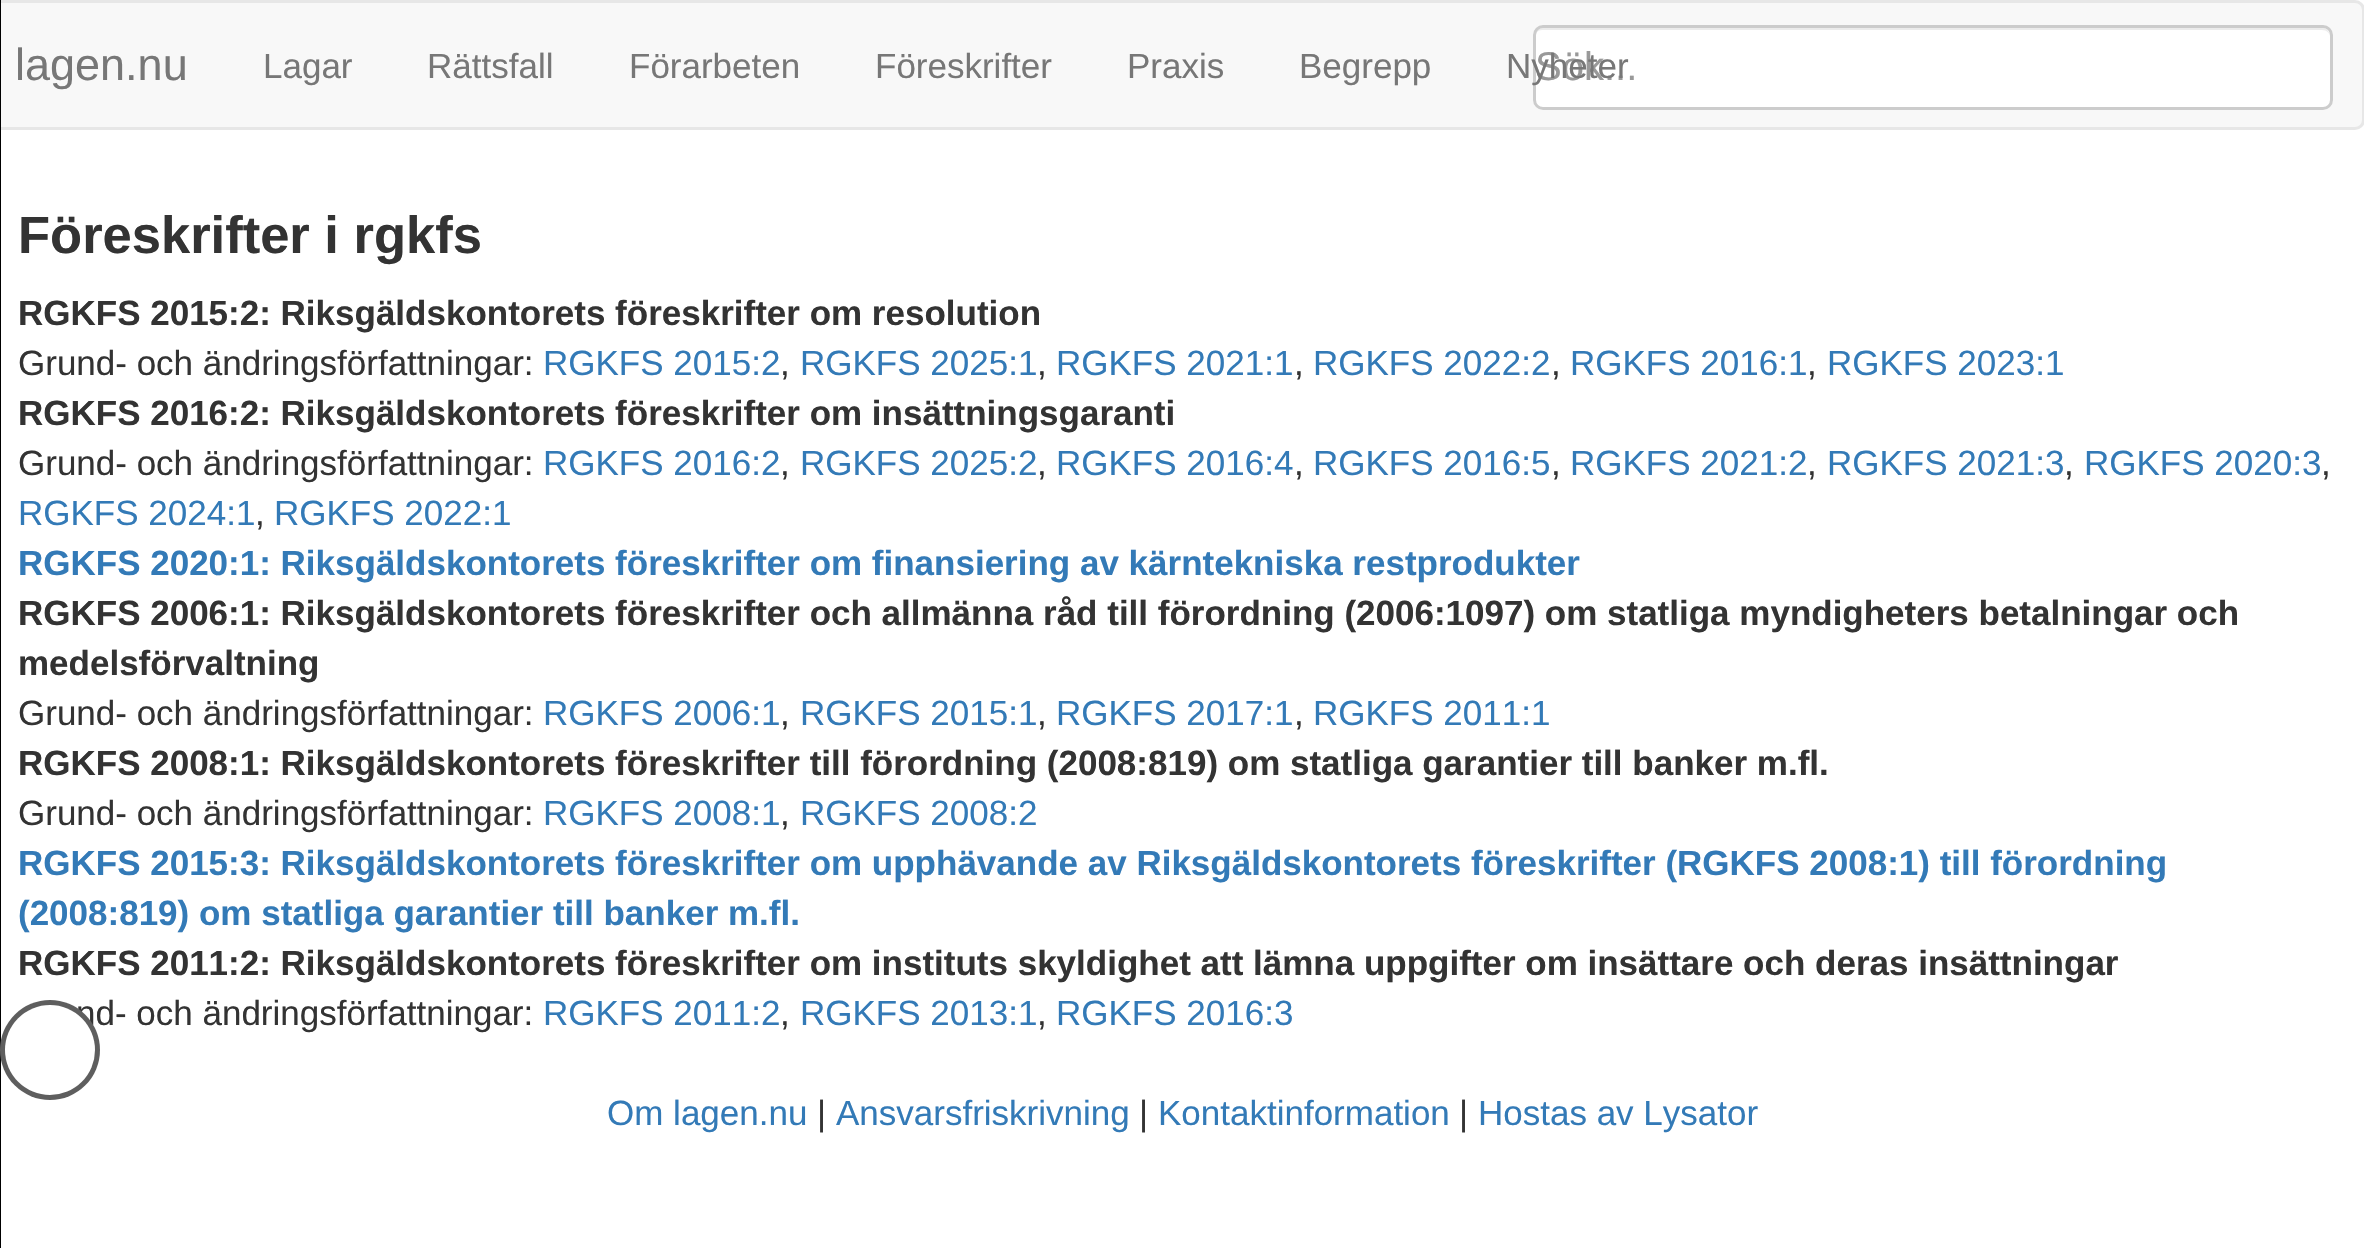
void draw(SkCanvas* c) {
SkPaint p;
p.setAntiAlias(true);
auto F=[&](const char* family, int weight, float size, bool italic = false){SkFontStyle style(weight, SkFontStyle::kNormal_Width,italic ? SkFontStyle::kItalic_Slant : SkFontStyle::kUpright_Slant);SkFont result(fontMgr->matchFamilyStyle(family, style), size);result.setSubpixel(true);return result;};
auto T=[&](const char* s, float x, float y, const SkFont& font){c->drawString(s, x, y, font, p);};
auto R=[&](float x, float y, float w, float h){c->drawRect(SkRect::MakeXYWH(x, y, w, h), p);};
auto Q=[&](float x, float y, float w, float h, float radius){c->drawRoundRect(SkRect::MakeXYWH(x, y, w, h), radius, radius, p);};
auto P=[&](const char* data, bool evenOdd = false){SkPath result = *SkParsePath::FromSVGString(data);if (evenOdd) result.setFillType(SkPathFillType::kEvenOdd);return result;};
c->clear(0xffffffff);
p.setColor(0xfff8f8f8);
c->drawRoundRect(SkRect::MakeXYWH(-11.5,1.5,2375,127),8.5,8.5,p);
p.setStroke(true);
p.setStrokeWidth(3);
p.setColor(0xffe7e7e7);
c->drawRoundRect(SkRect::MakeXYWH(-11.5,1.5,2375,127),8.5,8.5,p);
auto f1 = F("Liberation Sans",400,45);
p.setStroke(false);
p.setColor(0xff777777);
T("lagen.nu",15,80,f1);
p.setColor(0xffffffff);
Q(1533,25,800,85,10);
p.setColor(0xffececec);
c->drawPath(P("M1542 30h780c5 0 8 3 8 8c0-5-2-10-8-10h-779c-6 0-8 5-8 10c0-5 3-8 7-8z"),p);
p.setStroke(true);
p.setColor(0xffcccccc);
c->drawRoundRect(SkRect::MakeXYWH(1534.5,26.5,797,82),8.5,8.5,p);
auto f2 = F("Liberation Sans",400,40);
p.setStroke(false);
p.setColor(0xff999999);
T("Sök...",1535,80,f2);
auto f3 = F("Liberation Sans",400,35);
p.setColor(0xff777777);
T("Lagar",263,78,f3);
T("Rättsfall",427,78,f3);
T("Förarbeten",629,78,f3);
T("Föreskrifter",875,78,f3);
T("Praxis",1127,78,f3);
T("Begrepp",1299,78,f3);
T("Nyheter",1506,78,f3);
p.setColor(0xff000000);
R(0,0,1,1248);
p.setColor(0xff333333);
T("nd- och ändringsförfattningar:",76,1025,f3);
p.setColor(0xff5e5e5e);
c->drawCircle(50,1050,50,p);
p.setColor(0xffffffff);
c->drawCircle(50,1050,45,p);
auto f4 = F("Liberation Sans",700,52.5);
p.setColor(0xff333333);
T("Föreskrifter i rgkfs",18,253,f4);
auto f5 = F("Liberation Sans",700,35);
T("RGKFS 2015:2: Riksgäldskontorets föreskrifter om resolution",18,325,f5);
T("Grund- och ändringsförfattningar:",18,375,f3);
p.setColor(0xff337ab7);
T("RGKFS 2015:2",543,375,f3);
p.setColor(0xff333333);
T(",",780,375,f3);
p.setColor(0xff337ab7);
T("RGKFS 2025:1",800,375,f3);
p.setColor(0xff333333);
T(",",1037,375,f3);
p.setColor(0xff337ab7);
T("RGKFS 2021:1",1056,375,f3);
p.setColor(0xff333333);
T(",",1294,375,f3);
p.setColor(0xff337ab7);
T("RGKFS 2022:2",1313,375,f3);
p.setColor(0xff333333);
T(",",1551,375,f3);
p.setColor(0xff337ab7);
T("RGKFS 2016:1",1570,375,f3);
p.setColor(0xff333333);
T(",",1807,375,f3);
p.setColor(0xff337ab7);
T("RGKFS 2023:1",1827,375,f3);
p.setColor(0xff333333);
T("RGKFS 2016:2: Riksgäldskontorets föreskrifter om insättningsgaranti",18,425,f5);
T("Grund- och ändringsförfattningar:",18,475,f3);
p.setColor(0xff337ab7);
T("RGKFS 2016:2",543,475,f3);
p.setColor(0xff333333);
T(",",780,475,f3);
p.setColor(0xff337ab7);
T("RGKFS 2025:2",800,475,f3);
p.setColor(0xff333333);
T(",",1037,475,f3);
p.setColor(0xff337ab7);
T("RGKFS 2016:4",1056,475,f3);
p.setColor(0xff333333);
T(",",1294,475,f3);
p.setColor(0xff337ab7);
T("RGKFS 2016:5",1313,475,f3);
p.setColor(0xff333333);
T(",",1551,475,f3);
p.setColor(0xff337ab7);
T("RGKFS 2021:2",1570,475,f3);
p.setColor(0xff333333);
T(",",1807,475,f3);
p.setColor(0xff337ab7);
T("RGKFS 2021:3",1827,475,f3);
p.setColor(0xff333333);
T(",",2064,475,f3);
p.setColor(0xff337ab7);
T("RGKFS 2020:3",2084,475,f3);
p.setColor(0xff333333);
T(",",2321,475,f3);
p.setColor(0xff337ab7);
T("RGKFS 2024:1",18,525,f3);
p.setColor(0xff333333);
T(",",255,525,f3);
p.setColor(0xff337ab7);
T("RGKFS 2022:1",274,525,f3);
T("RGKFS 2020:1: Riksgäldskontorets föreskrifter om finansiering av kärntekniska restprodukter",18,575,f5);
p.setColor(0xff333333);
T("RGKFS 2006:1: Riksgäldskontorets föreskrifter och allmänna råd till förordning (2006:1097) om statliga myndigheters betalningar och",18,625,f5);
T("medelsförvaltning",18,675,f5);
T("Grund- och ändringsförfattningar:",18,725,f3);
p.setColor(0xff337ab7);
T("RGKFS 2006:1",543,725,f3);
p.setColor(0xff333333);
T(",",780,725,f3);
p.setColor(0xff337ab7);
T("RGKFS 2015:1",800,725,f3);
p.setColor(0xff333333);
T(",",1037,725,f3);
p.setColor(0xff337ab7);
T("RGKFS 2017:1",1056,725,f3);
p.setColor(0xff333333);
T(",",1294,725,f3);
p.setColor(0xff337ab7);
T("RGKFS 2011:1",1313,725,f3);
p.setColor(0xff333333);
T("RGKFS 2008:1: Riksgäldskontorets föreskrifter till förordning (2008:819) om statliga garantier till banker m.fl.",18,775,f5);
T("Grund- och ändringsförfattningar:",18,825,f3);
p.setColor(0xff337ab7);
T("RGKFS 2008:1",543,825,f3);
p.setColor(0xff333333);
T(",",780,825,f3);
p.setColor(0xff337ab7);
T("RGKFS 2008:2",800,825,f3);
T("RGKFS 2015:3: Riksgäldskontorets föreskrifter om upphävande av Riksgäldskontorets föreskrifter (RGKFS 2008:1) till förordning",18,875,f5);
T("(2008:819) om statliga garantier till banker m.fl.",18,925,f5);
p.setColor(0xff333333);
T("RGKFS 2011:2: Riksgäldskontorets föreskrifter om instituts skyldighet att lämna uppgifter om insättare och deras insättningar",18,975,f5);
p.setColor(0xff337ab7);
T("RGKFS 2011:2",543,1025,f3);
p.setColor(0xff333333);
T(",",780,1025,f3);
p.setColor(0xff337ab7);
T("RGKFS 2013:1",800,1025,f3);
p.setColor(0xff333333);
T(",",1037,1025,f3);
p.setColor(0xff337ab7);
T("RGKFS 2016:3",1056,1025,f3);
T("Om lagen.nu",607,1125,f3);
p.setColor(0xff333333);
T("|",817,1125,f3);
p.setColor(0xff337ab7);
T("Ansvarsfriskrivning",836,1125,f3);
p.setColor(0xff333333);
T("|",1139,1125,f3);
p.setColor(0xff337ab7);
T("Kontaktinformation",1158,1125,f3);
p.setColor(0xff333333);
T("|",1459,1125,f3);
p.setColor(0xff337ab7);
T("Hostas av Lysator",1478,1125,f3);
}
